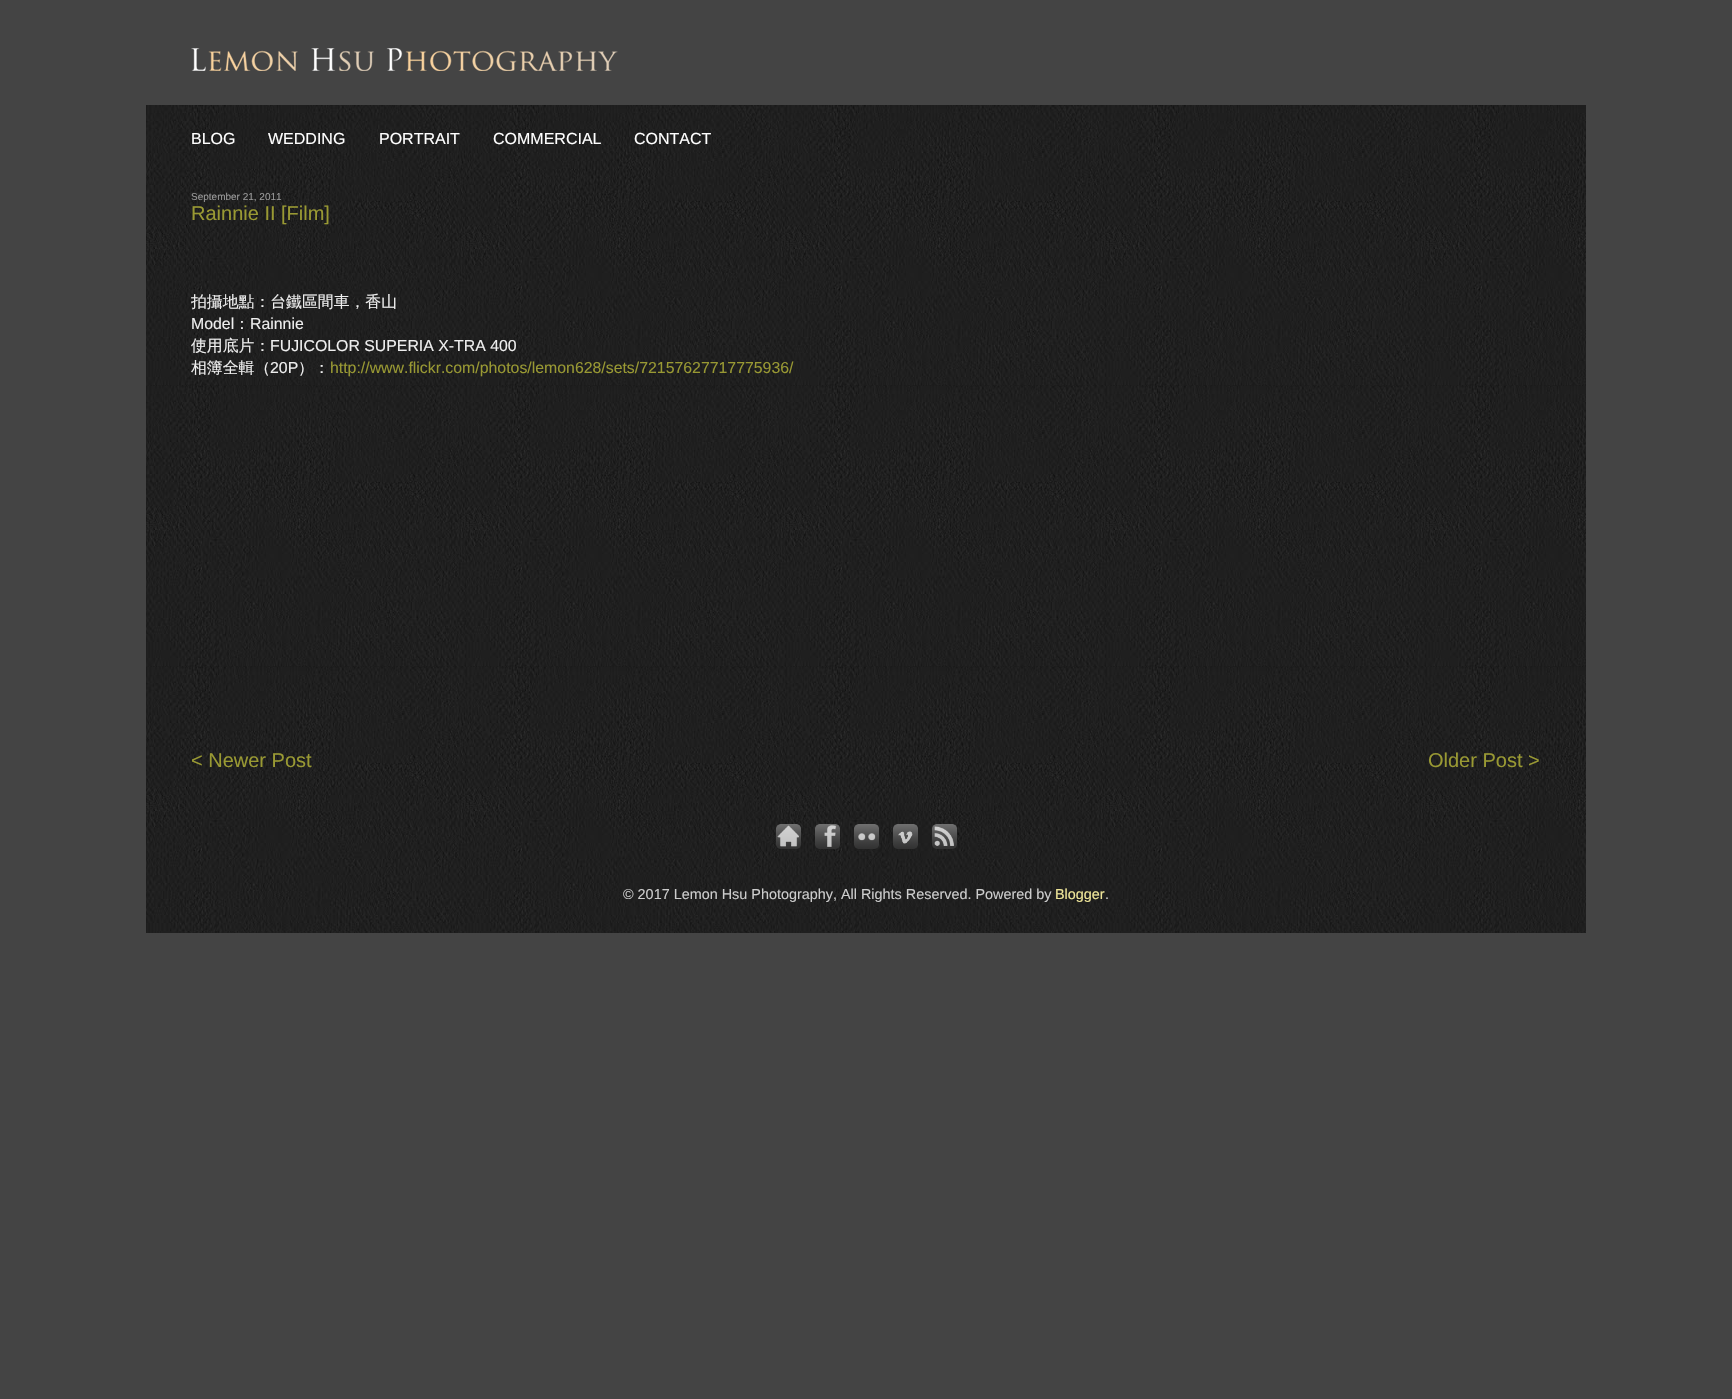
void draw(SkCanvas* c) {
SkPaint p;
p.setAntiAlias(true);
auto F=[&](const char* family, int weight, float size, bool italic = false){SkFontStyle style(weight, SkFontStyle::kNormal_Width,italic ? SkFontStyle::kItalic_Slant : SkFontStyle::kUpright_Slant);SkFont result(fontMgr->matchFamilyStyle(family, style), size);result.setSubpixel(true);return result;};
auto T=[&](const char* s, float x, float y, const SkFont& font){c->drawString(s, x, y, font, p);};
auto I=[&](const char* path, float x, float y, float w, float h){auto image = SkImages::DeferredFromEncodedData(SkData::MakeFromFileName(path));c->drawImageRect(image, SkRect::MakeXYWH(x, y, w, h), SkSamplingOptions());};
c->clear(0xff444444);
I("1.png",191,48,427,23);
I("2.png",146,105,1440,828);
auto f1 = F("Liberation Sans",400,16);
p.setColor(0xffffffff);
T("BLOG",191,144,f1);
T("WEDDING",268,144,f1);
T("PORTRAIT",379,144,f1);
T("COMMERCIAL",493,144,f1);
T("CONTACT",634,144,f1);
auto f2 = F("Liberation Sans",400,10);
p.setColor(0xff999999);
T("September 21, 2011",191,200,f2);
auto f3 = F("Liberation Sans",400,20);
p.setColor(0xff999933);
T("Rainnie II [Film]",191,220,f3);
auto f4 = F("WenQuanYi Zen Hei",500,15.85);
p.setColor(0xffeeeeee);
T("拍攝地點：台鐵區間車，香山",191,307,f4);
auto f5 = F("Liberation Sans",400,15.85);
T("Model",191,329,f5);
T("：",234,329,f4);
T("Rainnie",250,329,f5);
T("使用底片：",191,351,f4);
T("FUJICOLOR SUPERIA X-TRA 400",270,351,f5);
T("相簿全輯（",191,373,f4);
T("20P",270,373,f5);
T("）：",298,373,f4);
p.setColor(0xff999933);
T("http://www.flickr.com/photos/lemon628/sets/72157627717775936/",330,373,f5);
T("< Newer Post",191,767,f3);
T("Older Post >",1428,767,f3);
I("3.png",776,824,25,25);
I("4.png",815,824,25,25);
I("5.png",854,824,25,25);
I("6.png",893,824,25,25);
I("7.png",932,824,25,25);
auto f6 = F("Liberation Sans",400,14.4);
p.setColor(0xffcccccc);
T("© 2017 Lemon Hsu Photography, All Rights Reserved. Powered by",623,899,f6);
p.setColor(0xffeee598);
T("Blogger",1055,899,f6);
p.setColor(0xffcccccc);
T(".",1105,899,f6);
}
